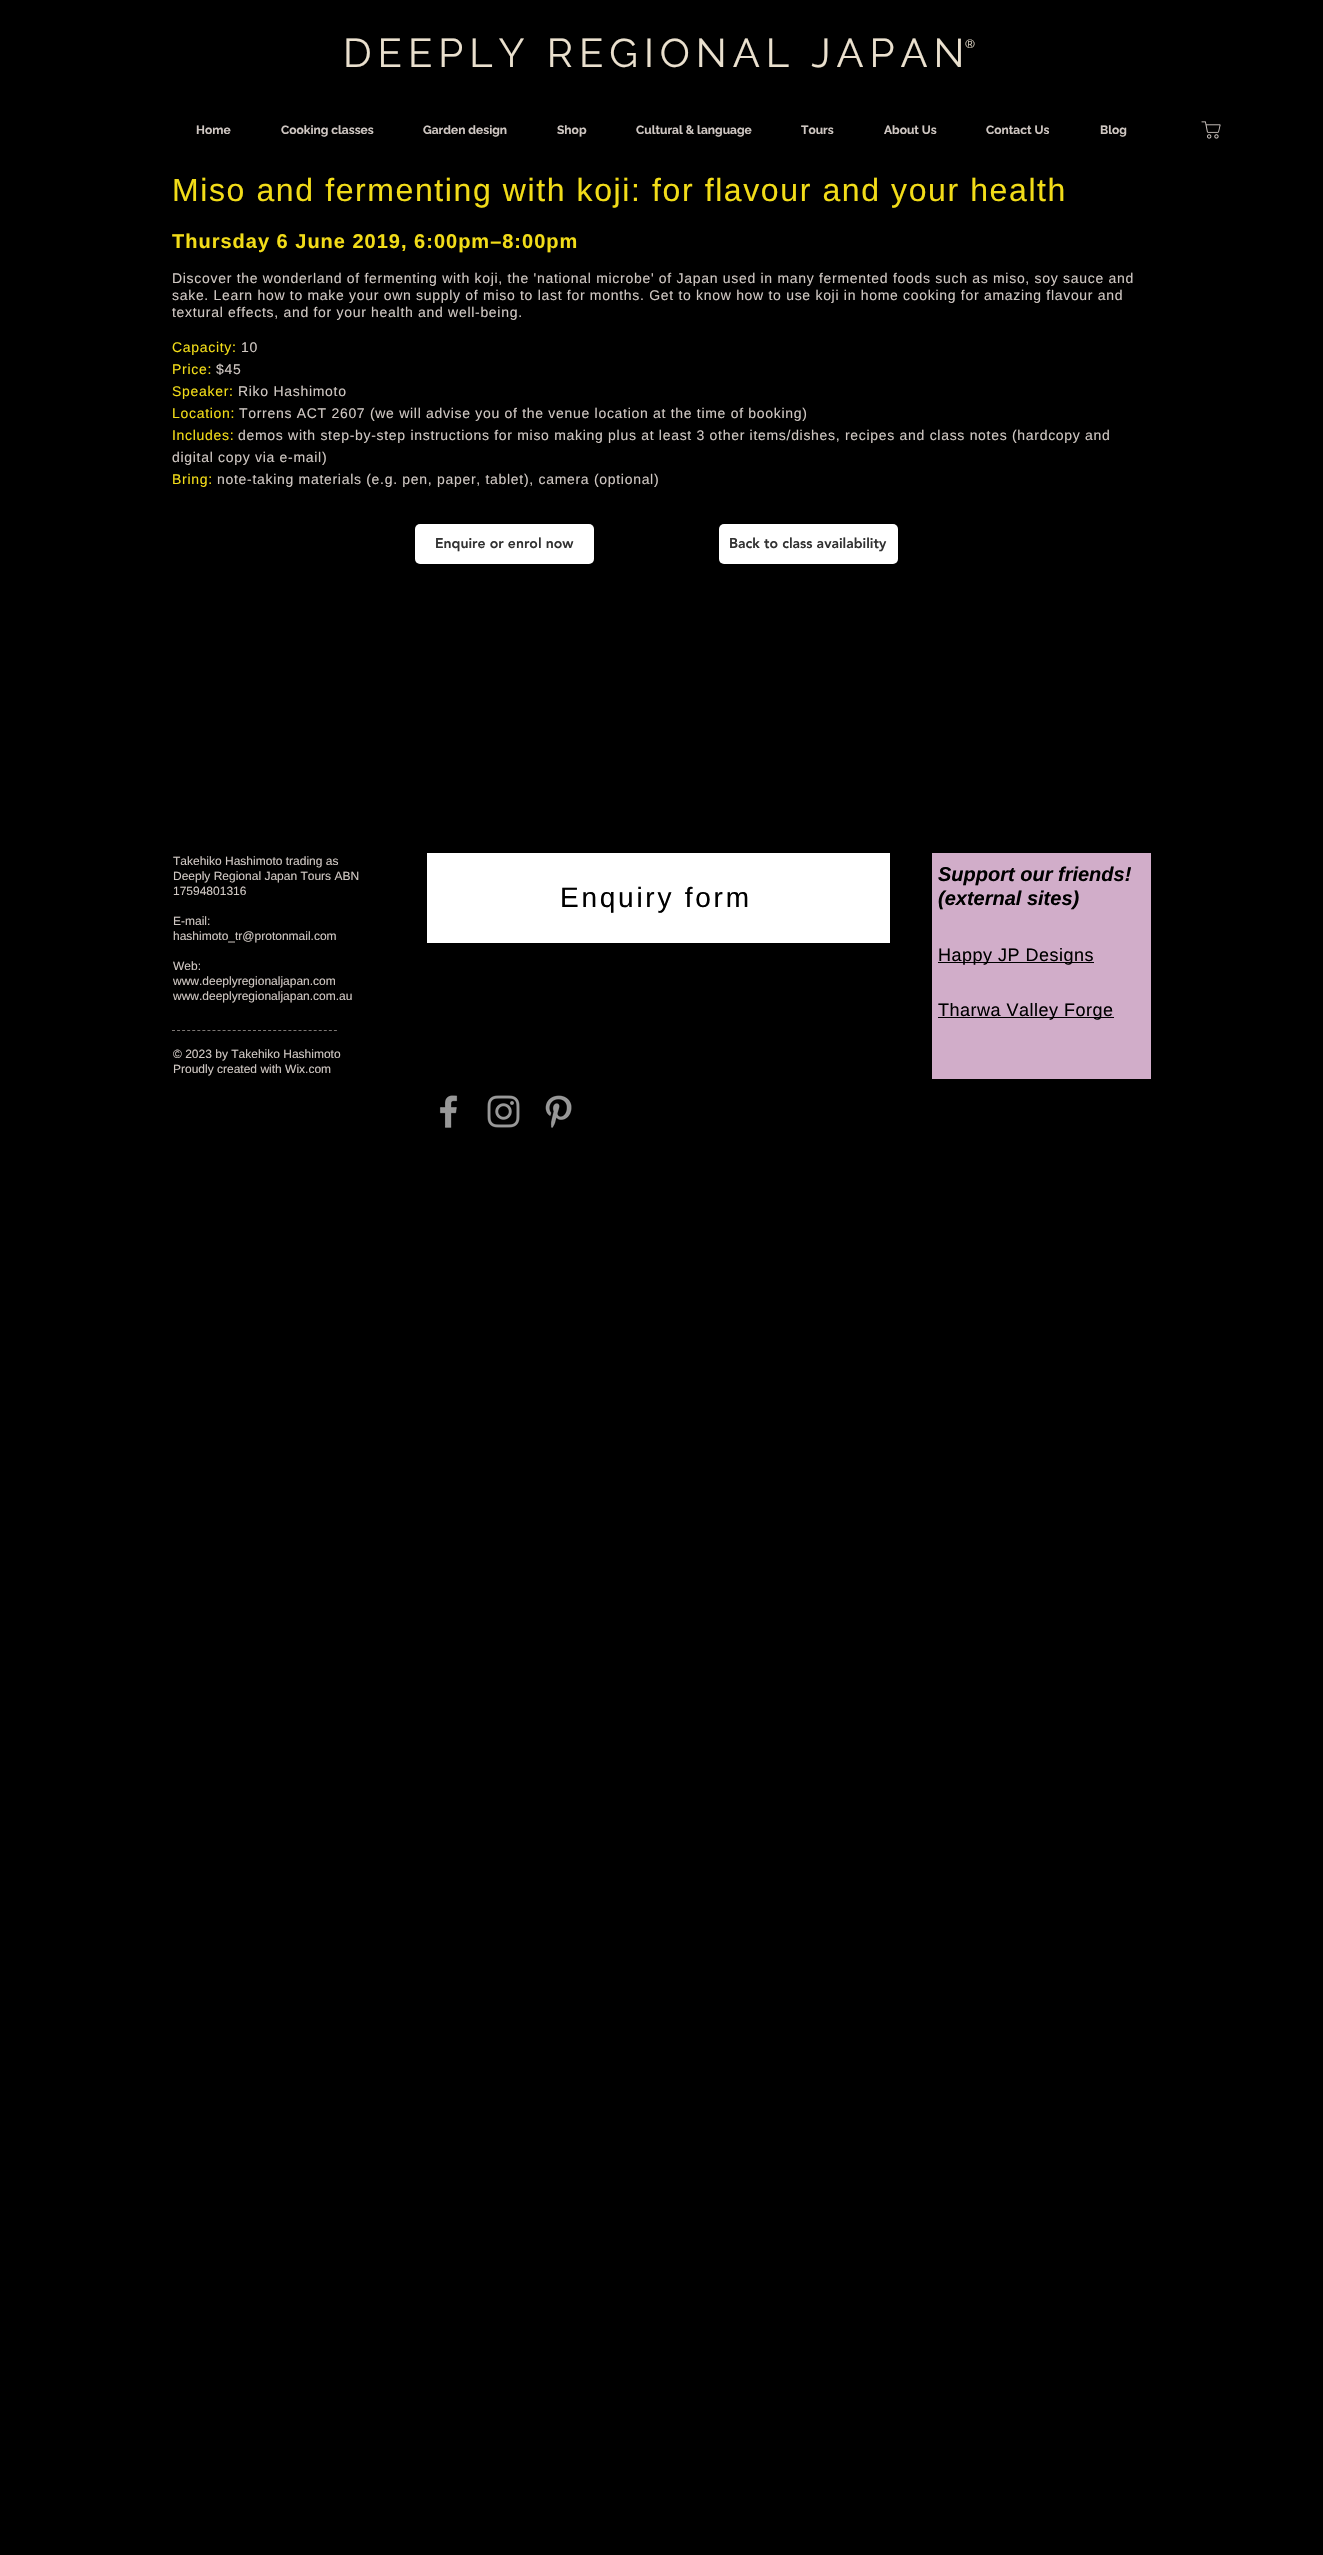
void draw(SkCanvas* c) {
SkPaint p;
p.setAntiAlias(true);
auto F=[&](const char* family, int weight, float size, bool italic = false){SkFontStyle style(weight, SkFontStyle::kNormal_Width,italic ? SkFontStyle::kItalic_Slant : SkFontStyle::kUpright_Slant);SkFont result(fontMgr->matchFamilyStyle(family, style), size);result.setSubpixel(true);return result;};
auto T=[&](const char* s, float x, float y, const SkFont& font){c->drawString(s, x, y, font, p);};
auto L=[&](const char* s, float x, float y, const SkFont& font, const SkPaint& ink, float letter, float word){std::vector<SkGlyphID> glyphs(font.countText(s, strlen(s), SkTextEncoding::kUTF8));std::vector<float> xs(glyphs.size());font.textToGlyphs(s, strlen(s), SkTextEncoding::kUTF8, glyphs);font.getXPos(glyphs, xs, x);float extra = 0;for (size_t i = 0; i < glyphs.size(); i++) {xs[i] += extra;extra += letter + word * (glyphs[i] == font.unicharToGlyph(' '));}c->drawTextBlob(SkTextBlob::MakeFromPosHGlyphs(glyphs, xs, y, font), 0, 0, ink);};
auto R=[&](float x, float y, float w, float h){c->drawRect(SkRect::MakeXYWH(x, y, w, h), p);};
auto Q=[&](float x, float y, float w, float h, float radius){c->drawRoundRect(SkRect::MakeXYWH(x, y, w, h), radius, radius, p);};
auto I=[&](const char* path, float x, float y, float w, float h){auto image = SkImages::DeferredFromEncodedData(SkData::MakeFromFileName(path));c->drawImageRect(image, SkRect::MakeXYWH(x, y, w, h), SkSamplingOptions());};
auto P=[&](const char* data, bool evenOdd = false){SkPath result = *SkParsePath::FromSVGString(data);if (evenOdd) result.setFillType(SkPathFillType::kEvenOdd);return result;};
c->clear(0xff000000);
auto f1 = F("Raleway",400,40);
p.setColor(0xffeae0ce);
L("DEEPLY REGIONAL JAPAN",343,67,f1,p,6,0);
auto f2 = F("Raleway",400,12);
L("®",965,48,f2,p,2,0);
auto f3 = F("Raleway",700,12);
p.setColor(0xffcfc7c2);
T("Home",196,134,f3);
T("Cooking classes",281,134,f3);
T("Garden design",423,134,f3);
T("Shop",557,134,f3);
T("Cultural & language",636,134,f3);
T("Tours",801,134,f3);
T("About Us",884,134,f3);
T("Contact Us",986,134,f3);
T("Blog",1100,134,f3);
I("1.png",1201,121,20,18);
auto f4 = F("Liberation Sans",400,32);
p.setColor(0xfff2dc18);
L("Miso and fermenting with koji: for flavour and your health",172,201,f4,p,1.6,0);
auto f5 = F("Liberation Sans",700,20);
L("Thursday 6 June 2019, 6:00pm–8:00pm",172,248,f5,p,1,0);
auto f6 = F("Liberation Sans",400,14);
p.setColor(0xffcfc7c2);
L("Discover the wonderland of fermenting with koji, the 'national microbe' of Japan used in many fermented foods such as miso, soy sauce and",172,283,f6,p,.7,0);
L("sake. Learn how to make your own supply of miso to last for months. Get to know how to use koji in home cooking for amazing flavour and",172,300,f6,p,.7,0);
L("textural effects, and for your health and well-being.",172,317,f6,p,.7,0);
p.setColor(0xfff2dc18);
L("Capacity:",172,352,f6,p,.7,0);
p.setColor(0xffcfc7c2);
L("10",241,352,f6,p,.7,0);
p.setColor(0xfff2dc18);
L("Price:",172,374,f6,p,.7,0);
p.setColor(0xffcfc7c2);
L("$45",216,374,f6,p,.7,0);
p.setColor(0xfff2dc18);
L("Speaker:",172,396,f6,p,.7,0);
p.setColor(0xffcfc7c2);
L("Riko Hashimoto",238,396,f6,p,.7,0);
p.setColor(0xfff2dc18);
L("Location:",172,418,f6,p,.7,0);
p.setColor(0xffcfc7c2);
L("Torrens ACT 2607 (we will advise you of the venue location at the time of booking)",239,418,f6,p,.7,0);
p.setColor(0xfff2dc18);
L("Includes:",172,440,f6,p,.7,0);
p.setColor(0xffcfc7c2);
L("demos with step-by-step instructions for miso making plus at least 3 other items/dishes, recipes and class notes (hardcopy and",238,440,f6,p,.7,0);
L("digital copy via e-mail)",172,462,f6,p,.7,0);
p.setColor(0xfff2dc18);
L("Bring:",172,484,f6,p,.7,0);
p.setColor(0xffcfc7c2);
L("note-taking materials (e.g. pen, paper, tablet), camera (optional)",217,484,f6,p,.7,0);
p.setColor(0xffffffff);
Q(415,524,179,40,5);
auto f7 = F("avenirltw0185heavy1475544",900,14);
p.setColor(0xff323232);
T("Enquire or enrol now",435,548,f7);
p.setColor(0xffffffff);
Q(719,524,179,40,5);
p.setColor(0xff323232);
T("Back to class availability",729,548,f7);
auto f8 = F("Liberation Sans",400,12);
p.setColor(0xffcfc7c2);
T("Takehiko Hashimoto trading as",173,865,f8);
T("Deeply Regional Japan Tours ABN",173,880,f8);
T("17594801316",173,895,f8);
T("E-mail:",173,925,f8);
T("hashimoto_tr@protonmail.com",173,940,f8);
T("Web:",173,970,f8);
T("www.deeplyregionaljapan.com",173,985,f8);
T("www.deeplyregionaljapan.com.au",173,1000,f8);
p.setStroke(true);
p.setStrokeWidth(1);
p.setColor(0xff7c7774);
p.setPathEffect(SkDashPathEffect::Make({{3,2.06f}}, 0));
c->drawPath(P("M172 1030.5h165"),p);
p.setPathEffect(nullptr);
p.setStroke(false);
p.setColor(0xffcfc7c2);
T("© 2023 by Takehiko Hashimoto",173,1058,f8);
T("Proudly created with Wix.com",173,1073,f8);
p.setColor(0xffffffff);
R(427,853,463,90);
auto f9 = F("Liberation Sans",400,28);
p.setColor(0xff000000);
L("Enquiry form",560,907,f9,p,2.75,0);
p.setColor(0xffd1adc9);
R(932,853,219,226);
auto f10 = F("Liberation Sans",700,20,true);
p.setColor(0xff000000);
T("Support our friends!",938,881,f10);
T("(external sites)",938,905,f10);
R(938,962,156,1);
auto f11 = F("Liberation Sans",400,18);
L("Happy JP Designs",938,961,f11,p,.5,0);
R(938,1017,176,1);
L("Tharwa Valley Forge",938,1016,f11,p,.5,0);
I("2.png",439,1095,19,33);
I("3.png",487,1095,33,33);
I("4.png",545,1095,27,33);
}
